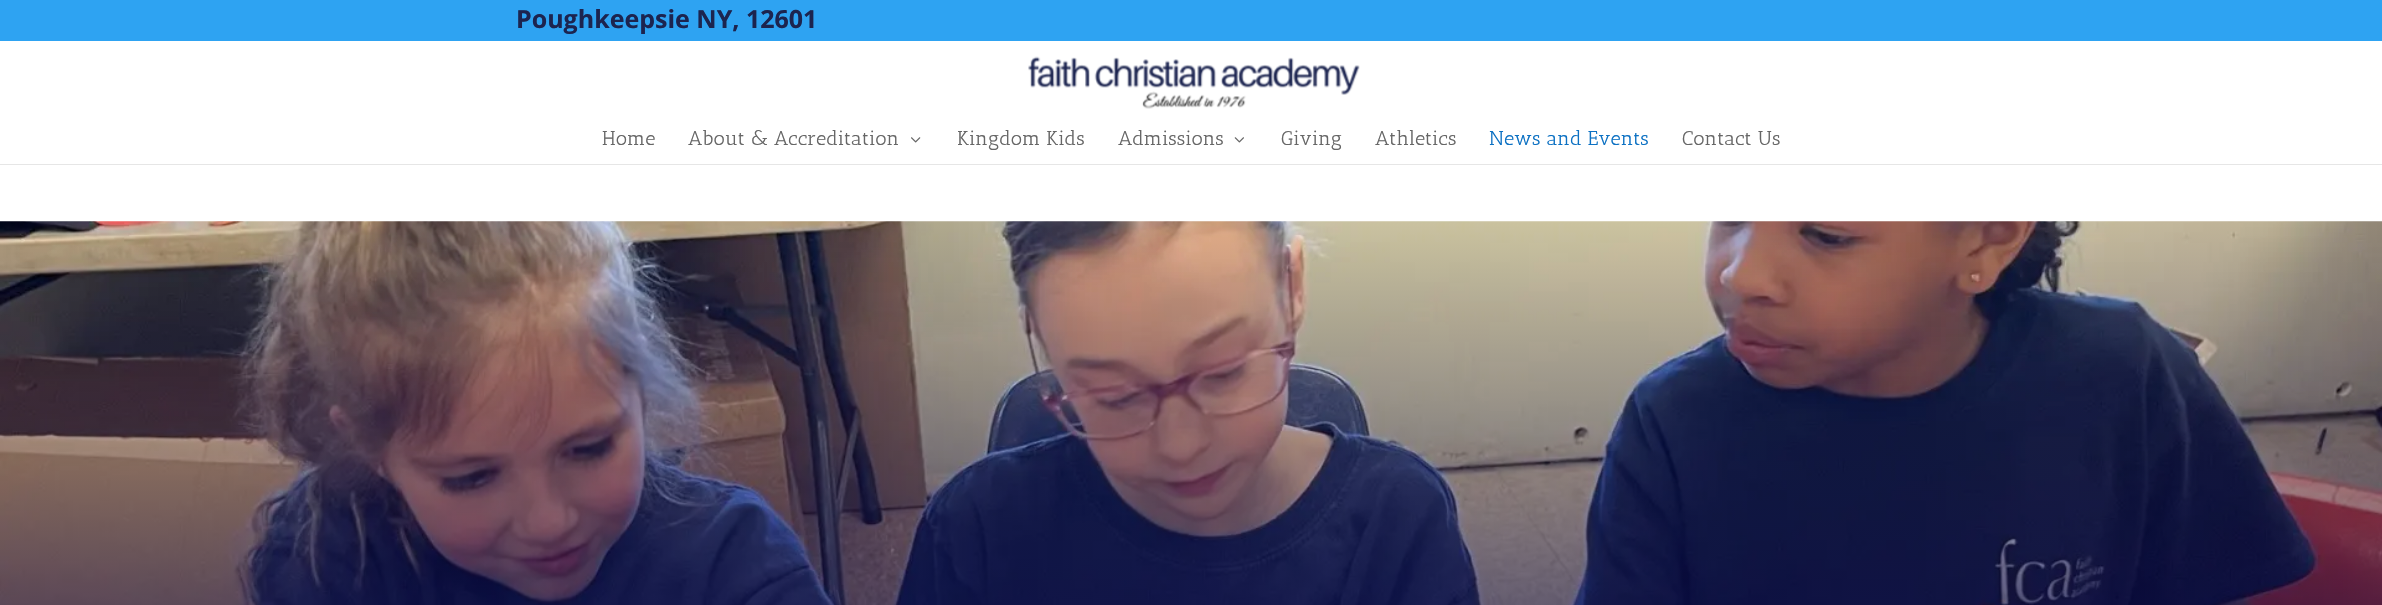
void draw(SkCanvas* c) {
SkPaint p;
p.setAntiAlias(true);
auto F=[&](const char* family, int weight, float size, bool italic = false){SkFontStyle style(weight, SkFontStyle::kNormal_Width,italic ? SkFontStyle::kItalic_Slant : SkFontStyle::kUpright_Slant);SkFont result(fontMgr->matchFamilyStyle(family, style), size);result.setSubpixel(true);return result;};
auto T=[&](const char* s, float x, float y, const SkFont& font){c->drawString(s, x, y, font, p);};
auto R=[&](float x, float y, float w, float h){c->drawRect(SkRect::MakeXYWH(x, y, w, h), p);};
auto I=[&](const char* path, float x, float y, float w, float h){auto image = SkImages::DeferredFromEncodedData(SkData::MakeFromFileName(path));c->drawImageRect(image, SkRect::MakeXYWH(x, y, w, h), SkSamplingOptions());};
auto P=[&](const char* data, bool evenOdd = false){SkPath result = *SkParsePath::FromSVGString(data);if (evenOdd) result.setFillType(SkPathFillType::kEvenOdd);return result;};
c->clear(0xffffffff);
p.setColor(0xff2ea3f2);
R(0,0,2382,41);
auto f1 = F("Open Sans",700,25);
p.setColor(0xff1c244f);
T("Poughkeepsie NY, 12601",516,28,f1);
p.setColor(0xffe6e6e6);
c->drawPath(P("M0 164v1h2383v-126h-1v125z"),p);
I("1.png",1028,56,332,53);
auto f2 = F("Antic Slab",400,20);
p.setColor(0xff666666);
T("Home",602,145,f2);
T("About & Accreditation",688,145,f2);
I("2.png",911,137,10,6);
T("Kingdom Kids",957,145,f2);
T("Admissions",1118,145,f2);
I("3.png",1234,137,10,6);
T("Giving",1281,145,f2);
T("Athletics",1375,145,f2);
p.setColor(0xff0c71c3);
T("News and Events",1489,145,f2);
p.setColor(0xff666666);
T("Contact Us",1682,145,f2);
I("4.png",0,221,2382,384);
}
